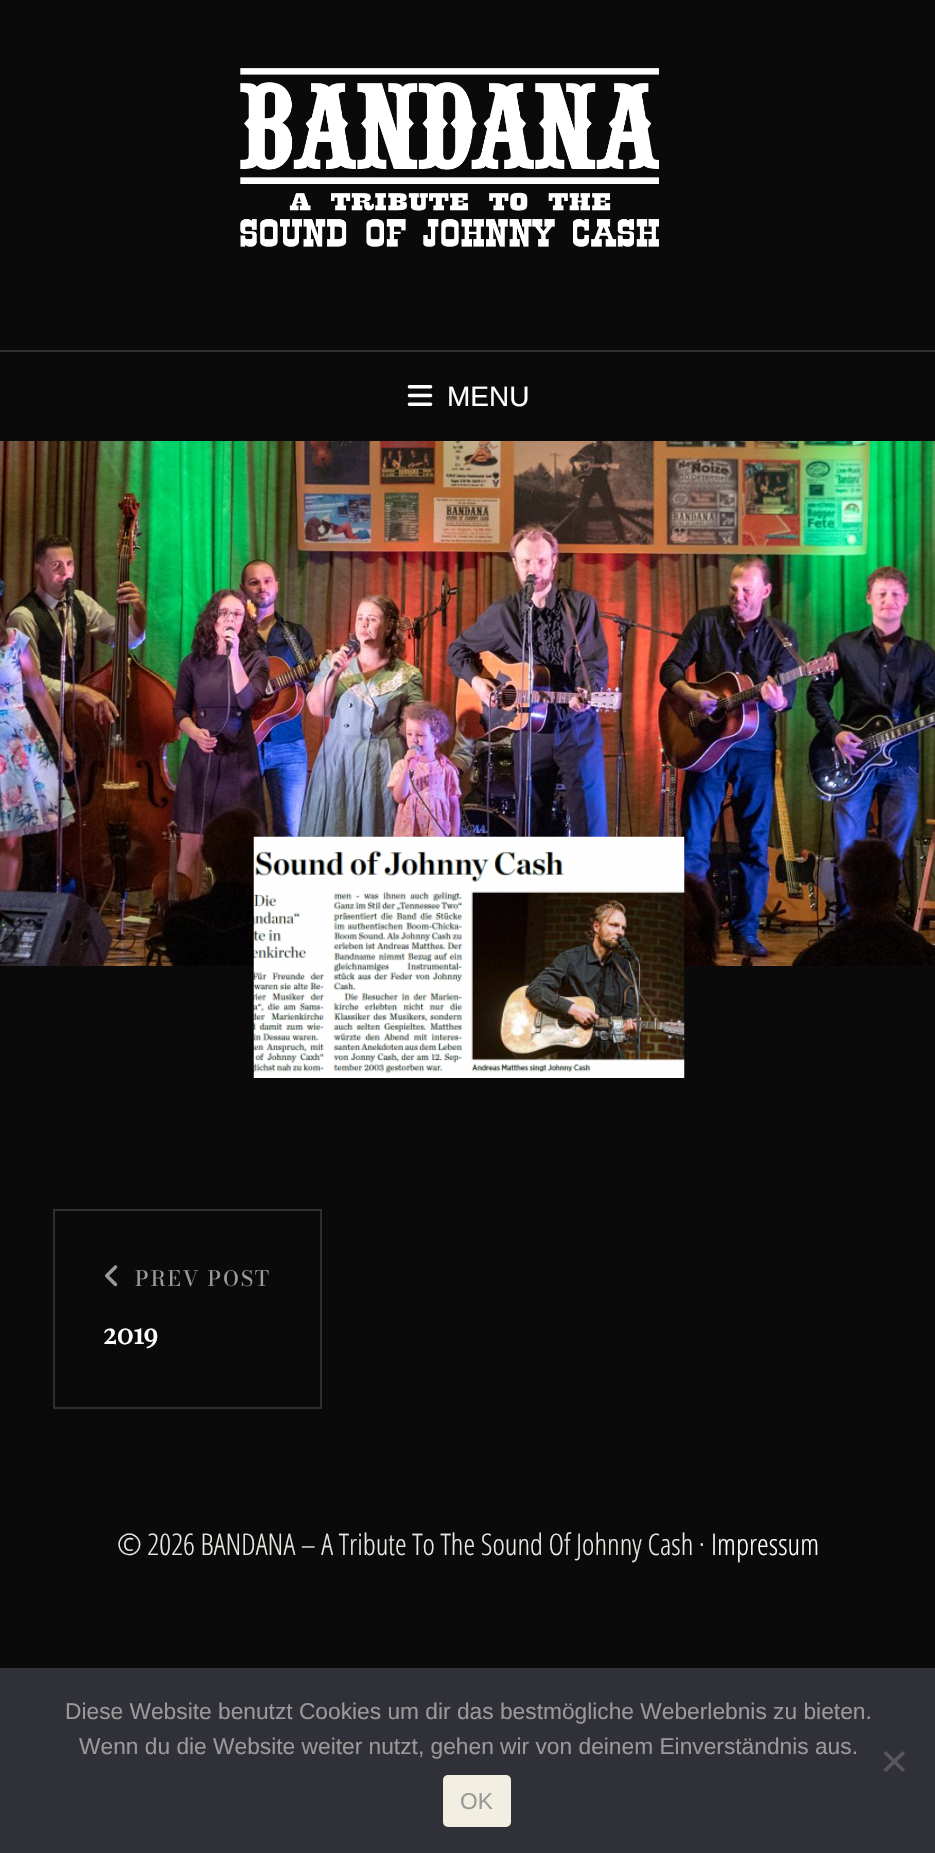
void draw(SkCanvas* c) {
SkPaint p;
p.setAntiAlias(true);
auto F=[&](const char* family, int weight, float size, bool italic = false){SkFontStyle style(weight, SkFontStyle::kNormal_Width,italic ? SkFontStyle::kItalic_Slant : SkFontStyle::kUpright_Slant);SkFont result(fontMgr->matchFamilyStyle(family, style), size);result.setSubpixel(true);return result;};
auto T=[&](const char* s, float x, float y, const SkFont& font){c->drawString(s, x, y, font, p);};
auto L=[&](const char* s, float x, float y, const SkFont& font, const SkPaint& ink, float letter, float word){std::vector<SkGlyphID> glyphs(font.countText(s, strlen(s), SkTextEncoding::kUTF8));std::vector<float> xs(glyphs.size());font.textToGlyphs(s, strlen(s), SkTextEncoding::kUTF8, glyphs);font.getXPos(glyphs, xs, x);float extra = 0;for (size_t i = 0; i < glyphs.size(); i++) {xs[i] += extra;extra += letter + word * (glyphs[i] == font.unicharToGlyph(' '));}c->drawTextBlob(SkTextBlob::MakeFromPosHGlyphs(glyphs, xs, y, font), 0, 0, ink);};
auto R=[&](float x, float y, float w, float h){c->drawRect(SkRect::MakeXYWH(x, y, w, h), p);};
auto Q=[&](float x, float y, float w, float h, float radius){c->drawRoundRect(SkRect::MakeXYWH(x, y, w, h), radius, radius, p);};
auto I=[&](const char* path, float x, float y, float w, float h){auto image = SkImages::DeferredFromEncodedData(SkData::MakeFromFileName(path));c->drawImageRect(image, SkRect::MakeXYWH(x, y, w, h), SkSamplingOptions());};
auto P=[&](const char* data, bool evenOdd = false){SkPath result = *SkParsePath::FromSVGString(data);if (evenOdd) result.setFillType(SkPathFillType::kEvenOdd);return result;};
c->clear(0xff0a0a0a);
I("1.png",240,68,419,179);
p.setColor(0xff2f2f2f);
R(0,350,935,2);
I("2.png",407,385,26,21);
auto f1 = F("Liberation Sans",400,28);
p.setColor(0xffffffff);
T("MENU",447,406,f1);
I("3.png",0,441,935,525);
I("4.png",253,836,432,242);
p.setStroke(true);
p.setStrokeWidth(2);
p.setColor(0xff2f2f2f);
c->drawRect(SkRect::MakeXYWH(54,1210,267,198),p);
I("5.png",105,1265,13,22);
auto f2 = F("Bodoni Moda",500,21);
p.setStroke(false);
p.setColor(0xff999999);
L("PREV POST",135,1286,f2,p,1.75,0);
auto f3 = F("Playfair Display",700,28);
p.setColor(0xffffffff);
T("2019",103,1344,f3);
auto f4 = F("Open Sans Condensed",300,29.75);
p.setColor(0xffeae9e3);
T("© 2026 BANDANA – A Tribute To The Sound Of Johnny Cash ·",117,1555,f4);
p.setColor(0xffffffff);
T("Impressum",711,1555,f4);
p.setColor(0xff303038);
R(0,1668,935,185);
auto f5 = F("Liberation Sans",400,22.75);
p.setColor(0xff999999);
T("Diese Website benutzt Cookies um dir das bestmögliche Weberlebnis zu bieten.",65,1719,f5);
T("Wenn du die Website weiter nutzt, gehen wir von deinem Einverständnis aus.",79,1754,f5);
p.setColor(0xff58585c);
c->drawPath(P("M902.5 1751l2.5 2.5l-19 18.5l-2.5-2.5z"),p);
c->drawPath(P("M883.5 1753.5l2.5-2.5l19 18.5l-2.5 2.5z"),p);
p.setColor(0xfff2eee1);
Q(443,1775,68,52,5);
p.setColor(0xff999999);
T("OK",460,1809,f5);
}
